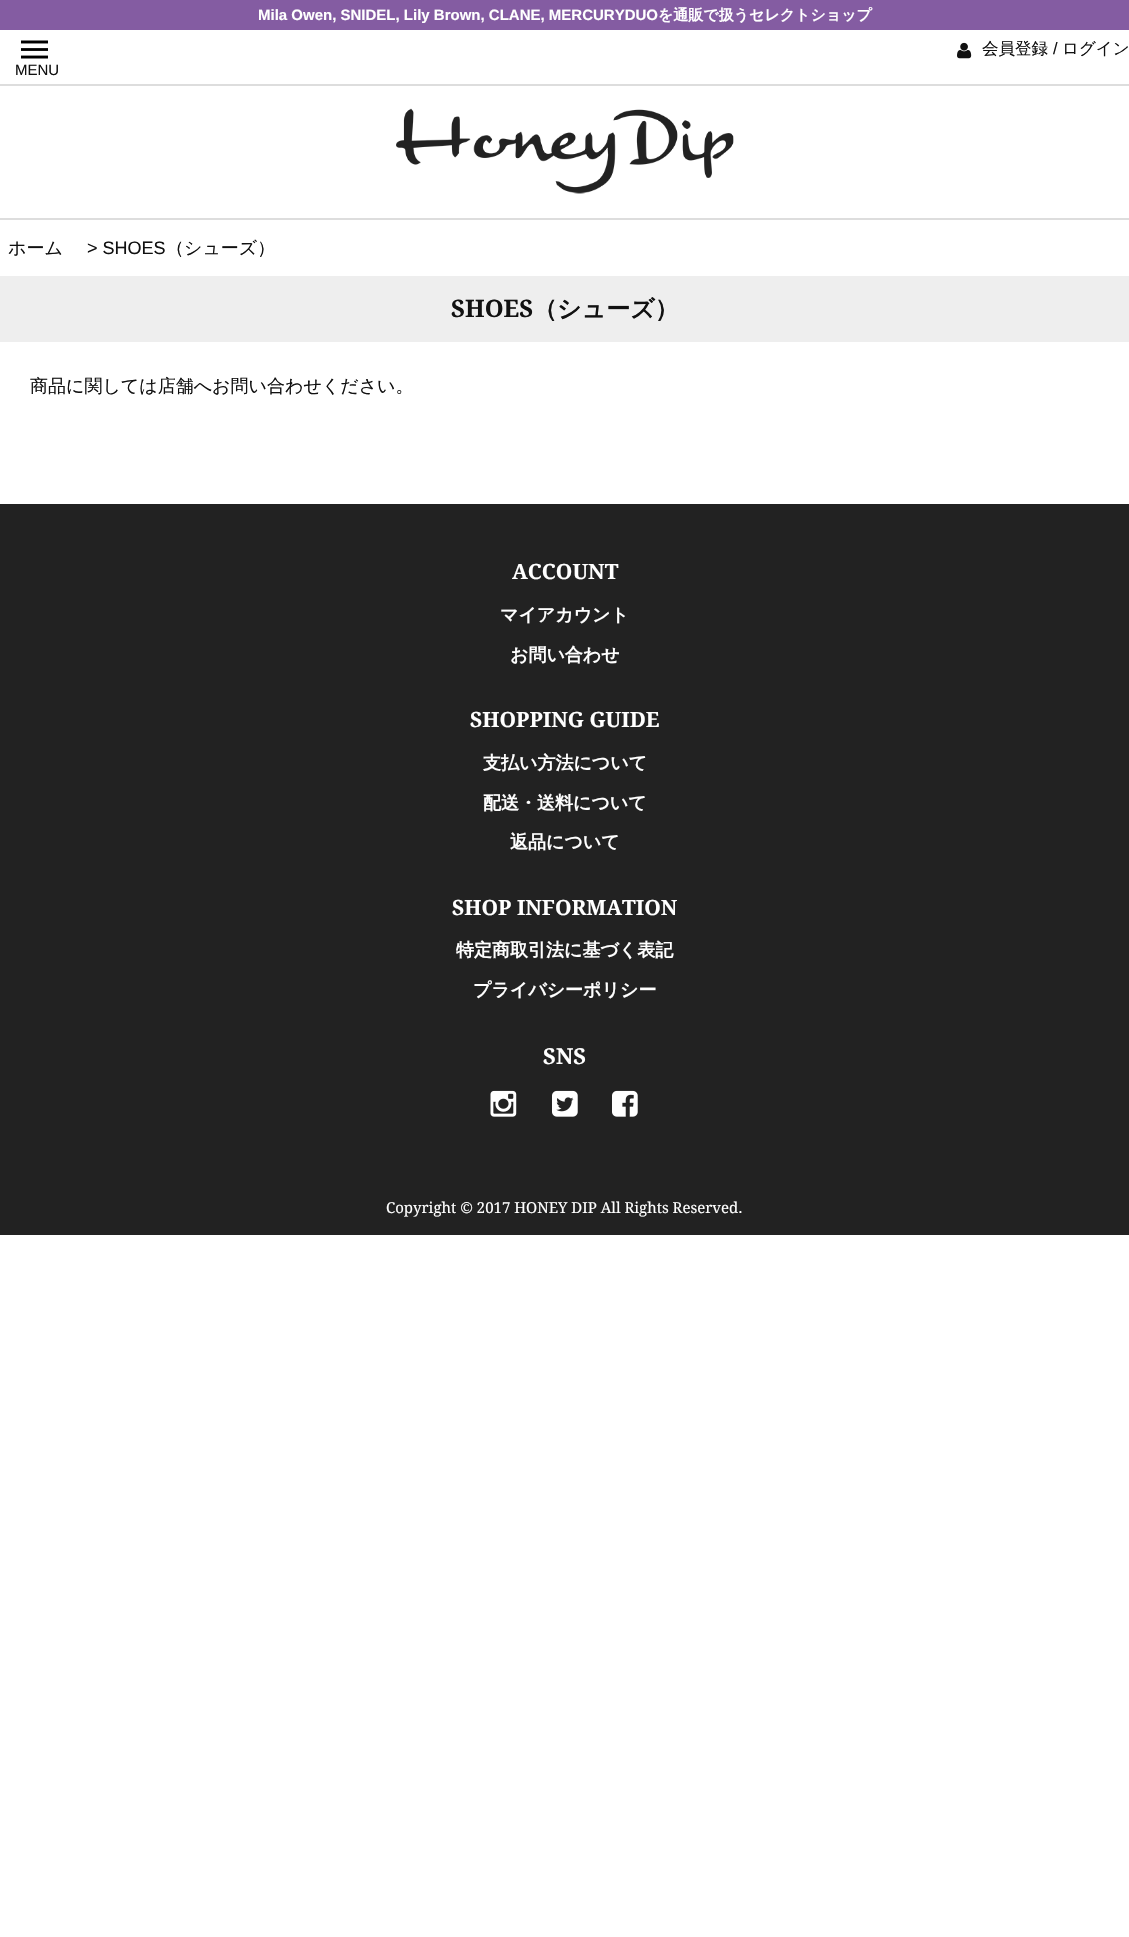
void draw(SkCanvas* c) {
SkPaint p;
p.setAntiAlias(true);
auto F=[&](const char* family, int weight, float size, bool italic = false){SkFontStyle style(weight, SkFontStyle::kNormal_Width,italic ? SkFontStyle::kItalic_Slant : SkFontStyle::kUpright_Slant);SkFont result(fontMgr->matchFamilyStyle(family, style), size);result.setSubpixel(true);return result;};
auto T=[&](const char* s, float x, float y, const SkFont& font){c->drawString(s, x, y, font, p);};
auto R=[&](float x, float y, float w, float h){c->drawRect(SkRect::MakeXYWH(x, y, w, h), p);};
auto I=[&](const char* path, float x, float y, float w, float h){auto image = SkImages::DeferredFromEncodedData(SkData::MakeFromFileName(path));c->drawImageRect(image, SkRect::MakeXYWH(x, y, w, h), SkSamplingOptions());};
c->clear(0xffffffff);
p.setColor(0xff845ca2);
R(0,0,1129,30);
auto f1 = F("Liberation Sans",700,15);
p.setColor(0xffffffff);
T("Mila Owen, SNIDEL, Lily Brown, CLANE, MERCURYDUO",258,20,f1);
auto f2 = F("WenQuanYi Zen Hei",700,15);
T("を通販で扱うセレクトショップ",658,20,f2);
I("1.png",957,42,15,17);
auto f3 = F("WenQuanYi Zen Hei",500,16.5);
p.setColor(0xff111111);
T("会員登録",982,54,f3);
auto f4 = F("Liberation Sans",400,16.5);
T("/",1053,54,f4);
T("ログイン",1062,54,f3);
I("2.png",21,40,27,19);
auto f5 = F("Liberation Sans",400,15);
T("MENU",15,75,f5);
p.setColor(0xffdddddd);
R(0,84,1129,2);
R(0,218,1129,2);
I("3.png",396,108,338,86);
auto f6 = F("WenQuanYi Zen Hei",500,18);
p.setColor(0xff111111);
T("ホーム",8,254,f6);
auto f7 = F("Liberation Sans",400,18);
T("> SHOES",87,254,f7);
T("（シューズ）",166,254,f6);
p.setColor(0xffeeeeee);
R(0,276,1129,66);
auto f8 = F("Droid Serif",700,24);
p.setColor(0xff111111);
T("SHOES",451,317,f8);
auto f9 = F("WenQuanYi Zen Hei",700,24);
T("（シューズ）",533,317,f9);
T("商品に関しては店舗へお問い合わせください。",30,392,f6);
p.setColor(0xff222222);
R(0,504,1129,731);
auto f10 = F("Droid Serif",700,21);
p.setColor(0xffffffff);
T("ACCOUNT",512,579,f10);
auto f11 = F("WenQuanYi Zen Hei",700,18);
T("マイアカウント",500,621,f11);
T("お問い合わせ",510,661,f11);
T("SHOPPING GUIDE",470,727,f10);
T("支払い方法について",483,769,f11);
T("配送・送料について",483,809,f11);
T("返品について",510,848,f11);
T("SHOP INFORMATION",452,915,f10);
T("特定商取引法に基づく表記",456,956,f11);
T("プライバシーポリシー",473,996,f11);
auto f12 = F("Droid Serif",700,22);
T("SNS",543,1064,f12);
I("4.png",490,1090,27,27);
I("5.png",552,1090,26,27);
I("6.png",612,1090,26,27);
auto f13 = F("Droid Serif",400,15);
T("Copyright © 2017 HONEY DIP All Rights Reserved.",386,1213,f13);
}
